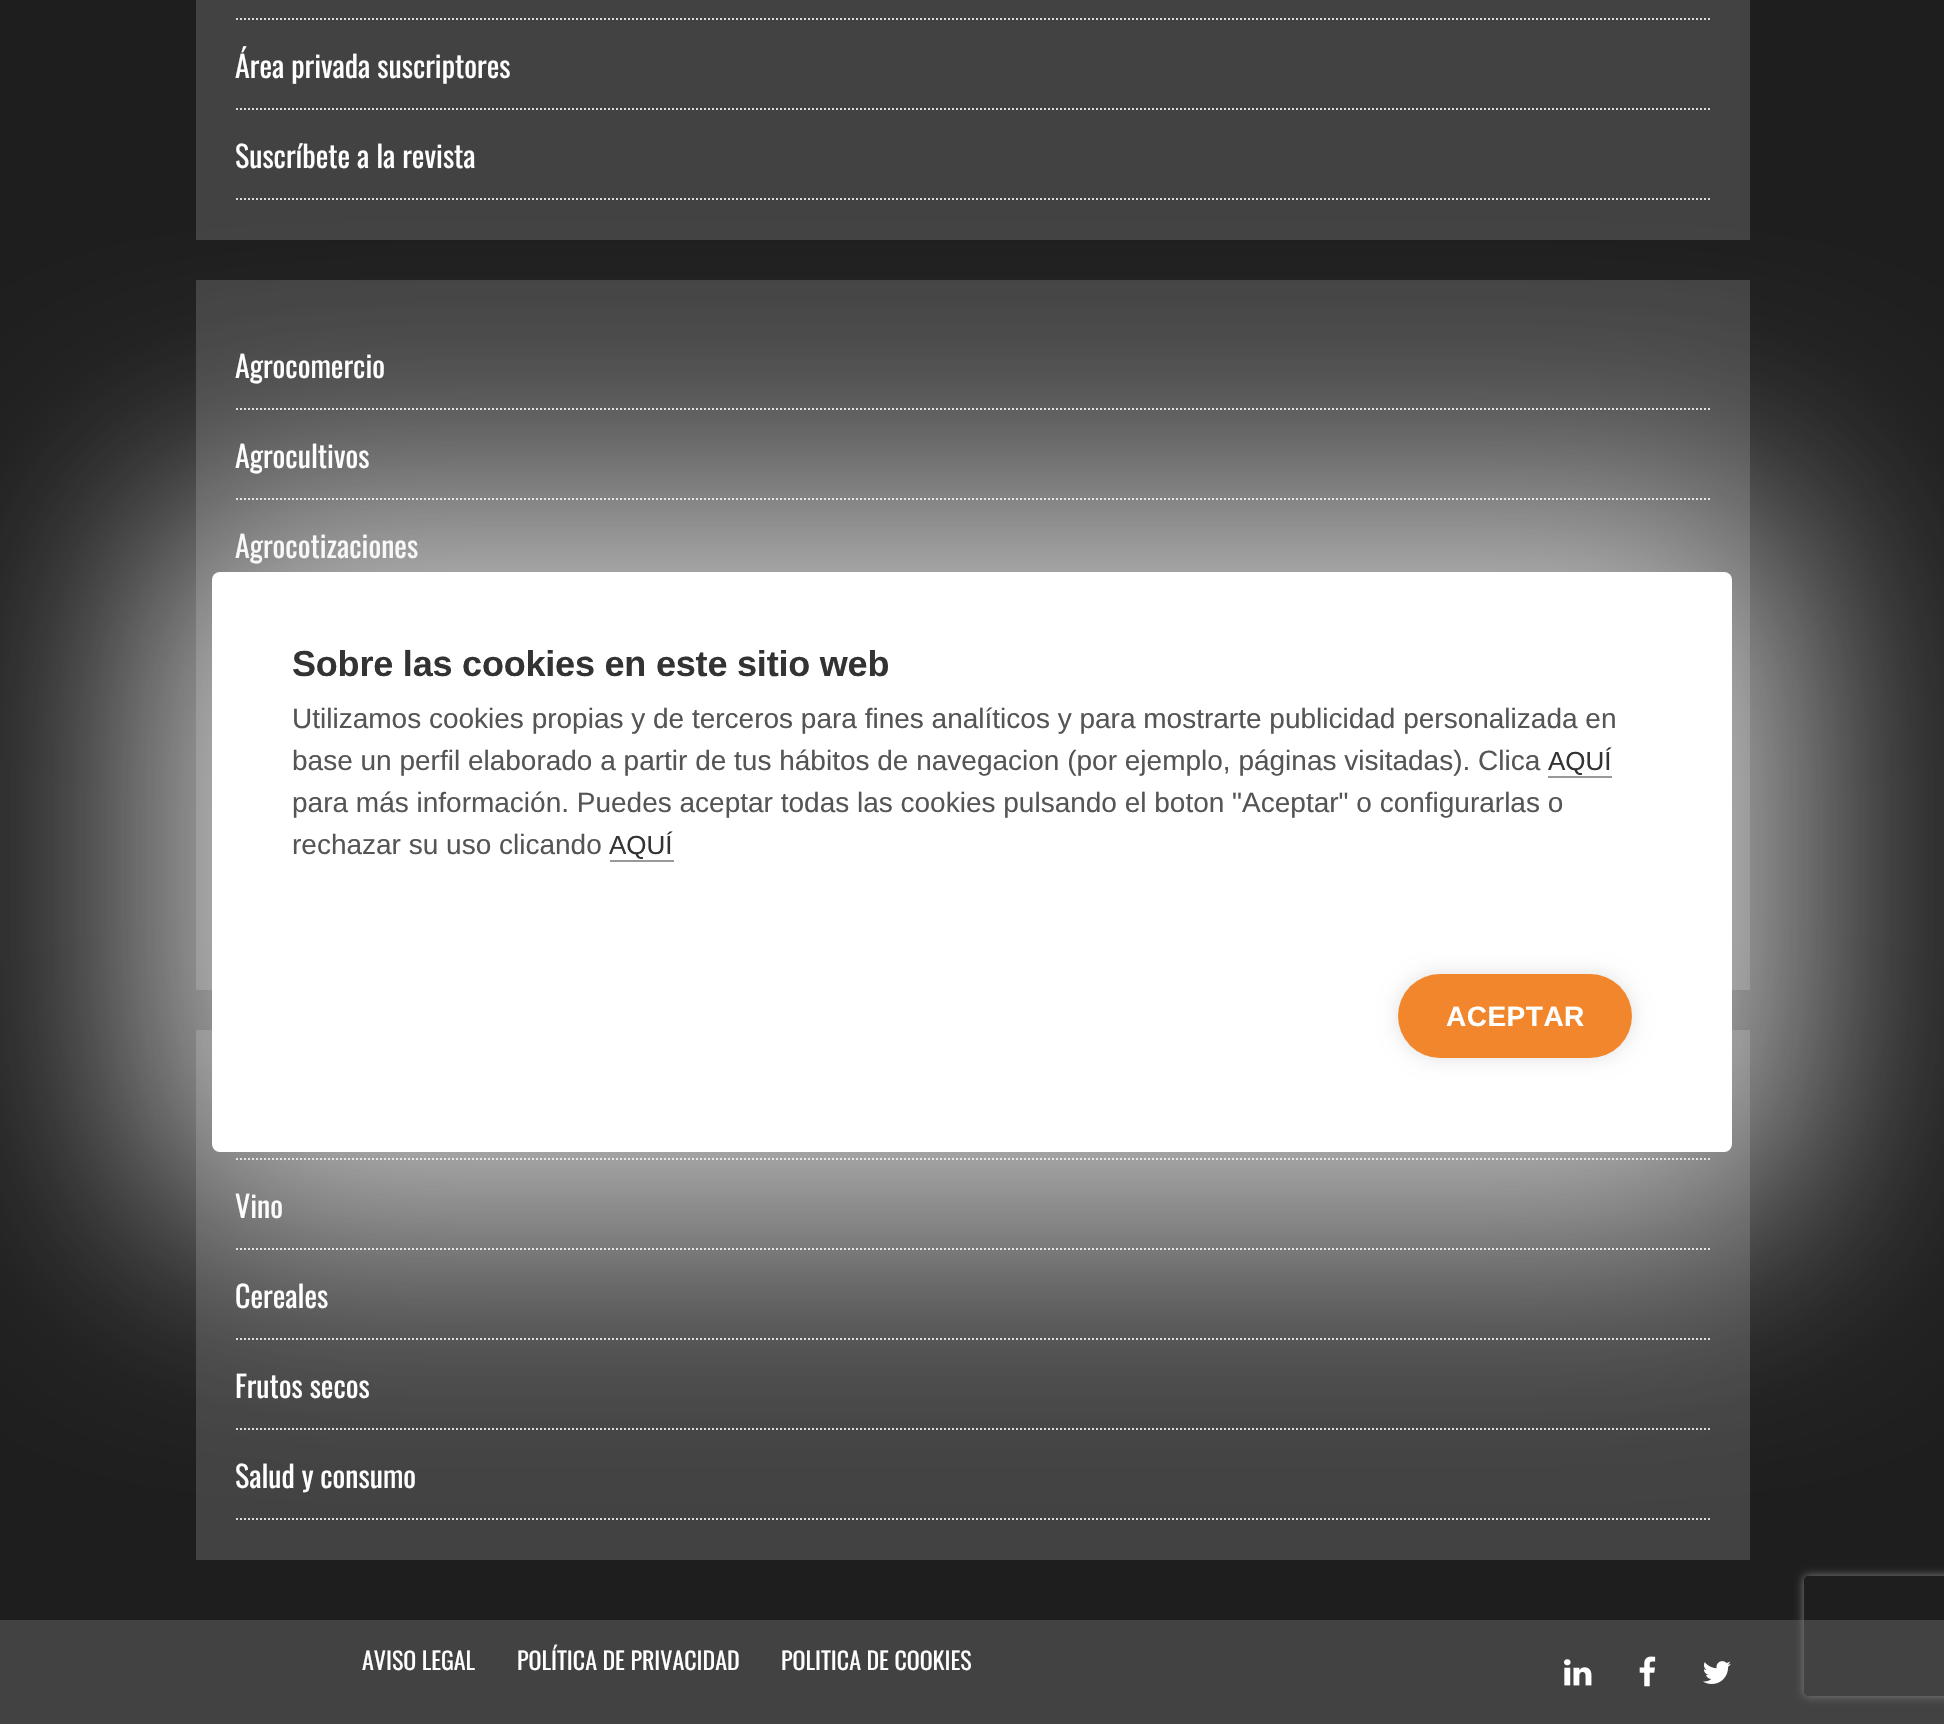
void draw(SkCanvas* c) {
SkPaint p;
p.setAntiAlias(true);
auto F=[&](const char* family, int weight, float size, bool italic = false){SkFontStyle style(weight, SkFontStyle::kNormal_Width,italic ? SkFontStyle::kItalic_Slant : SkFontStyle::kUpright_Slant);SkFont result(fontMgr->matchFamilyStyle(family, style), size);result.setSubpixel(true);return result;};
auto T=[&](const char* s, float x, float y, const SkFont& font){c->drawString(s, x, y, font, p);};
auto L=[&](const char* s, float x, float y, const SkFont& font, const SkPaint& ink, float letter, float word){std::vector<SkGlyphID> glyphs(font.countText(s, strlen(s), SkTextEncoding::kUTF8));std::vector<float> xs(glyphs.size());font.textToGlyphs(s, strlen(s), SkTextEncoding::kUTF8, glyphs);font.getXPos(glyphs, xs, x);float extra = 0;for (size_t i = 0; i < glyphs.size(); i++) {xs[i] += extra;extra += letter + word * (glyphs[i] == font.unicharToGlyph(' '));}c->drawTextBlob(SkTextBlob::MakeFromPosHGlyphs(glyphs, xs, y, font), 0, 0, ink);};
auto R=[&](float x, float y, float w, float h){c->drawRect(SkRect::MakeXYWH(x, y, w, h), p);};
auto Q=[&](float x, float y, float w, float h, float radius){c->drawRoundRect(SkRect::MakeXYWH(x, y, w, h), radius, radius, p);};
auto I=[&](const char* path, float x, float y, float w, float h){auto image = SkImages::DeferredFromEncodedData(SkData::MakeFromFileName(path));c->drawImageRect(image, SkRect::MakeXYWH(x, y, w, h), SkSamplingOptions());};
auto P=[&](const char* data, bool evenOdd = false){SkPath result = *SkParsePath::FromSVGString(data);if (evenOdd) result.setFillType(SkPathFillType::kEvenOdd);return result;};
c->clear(0xff1f1e1e);
p.setColor(0xff424242);
R(196,0,1554,240);
p.setStroke(true);
p.setStrokeWidth(2);
p.setColor(0xffdcdcdc);
p.setPathEffect(SkDashPathEffect::Make({{2,2}}, 0));
c->drawPath(P("M236 19h1474"),p);
p.setPathEffect(nullptr);
p.setPathEffect(SkDashPathEffect::Make({{2,2}}, 0));
c->drawPath(P("M236 109h1474"),p);
p.setPathEffect(nullptr);
auto f1 = F("Oswald",400,30);
p.setStroke(false);
p.setColor(0xffffffff);
T("Área privada suscriptores",235,78,f1);
p.setStroke(true);
p.setColor(0xffdcdcdc);
p.setPathEffect(SkDashPathEffect::Make({{2,2}}, 0));
c->drawPath(P("M236 199h1474"),p);
p.setPathEffect(nullptr);
p.setStroke(false);
p.setColor(0xffffffff);
T("Suscríbete a la revista",235,168,f1);
p.setColor(0xff424242);
R(196,280,1554,710);
p.setStroke(true);
p.setColor(0xffdcdcdc);
p.setPathEffect(SkDashPathEffect::Make({{2,2}}, 0));
c->drawPath(P("M236 409h1474"),p);
p.setPathEffect(nullptr);
p.setStroke(false);
p.setColor(0xffffffff);
T("Agrocomercio",235,378,f1);
p.setStroke(true);
p.setColor(0xffdcdcdc);
p.setPathEffect(SkDashPathEffect::Make({{2,2}}, 0));
c->drawPath(P("M236 499h1474"),p);
p.setPathEffect(nullptr);
p.setStroke(false);
p.setColor(0xffffffff);
T("Agrocultivos",235,468,f1);
T("Agrocotizaciones",235,558,f1);
p.setColor(0xff424242);
R(196,1030,1554,530);
p.setStroke(true);
p.setColor(0xffdcdcdc);
p.setPathEffect(SkDashPathEffect::Make({{2,2}}, 0));
c->drawPath(P("M236 1159h1474"),p);
p.setPathEffect(nullptr);
p.setPathEffect(SkDashPathEffect::Make({{2,2}}, 0));
c->drawPath(P("M236 1249h1474"),p);
p.setPathEffect(nullptr);
p.setStroke(false);
p.setColor(0xffffffff);
T("Vino",235,1218,f1);
p.setStroke(true);
p.setColor(0xffdcdcdc);
p.setPathEffect(SkDashPathEffect::Make({{2,2}}, 0));
c->drawPath(P("M236 1339h1474"),p);
p.setPathEffect(nullptr);
p.setStroke(false);
p.setColor(0xffffffff);
T("Cereales",235,1308,f1);
p.setStroke(true);
p.setColor(0xffdcdcdc);
p.setPathEffect(SkDashPathEffect::Make({{2,2}}, 0));
c->drawPath(P("M236 1429h1474"),p);
p.setPathEffect(nullptr);
p.setStroke(false);
p.setColor(0xffffffff);
T("Frutos secos",235,1398,f1);
p.setStroke(true);
p.setColor(0xffdcdcdc);
p.setPathEffect(SkDashPathEffect::Make({{2,2}}, 0));
c->drawPath(P("M236 1519h1474"),p);
p.setPathEffect(nullptr);
p.setStroke(false);
p.setColor(0xffffffff);
T("Salud y consumo",235,1488,f1);
p.setColor(0xff424242);
R(0,1620,1944,104);
auto f2 = F("Oswald",400,24);
p.setColor(0xffffffff);
T("AVISO LEGAL",362,1670,f2);
T("POLÍTICA DE PRIVACIDAD",517,1670,f2);
T("POLITICA DE COOKIES",781,1670,f2);
I("1.png",1564,1659,28,27);
I("2.png",1639,1656,17,31);
I("3.png",1703,1661,28,23);
p.setColor(0x26000000);
p.setMaskFilter(SkMaskFilter::MakeBlur(kNormal_SkBlurStyle, 50));
c->drawRoundRect(SkRect::MakeXYWH(212,572,1520,580),8,8,p);
p.setMaskFilter(nullptr);
p.setColor(0xbfffffff);
p.setMaskFilter(SkMaskFilter::MakeBlur(kNormal_SkBlurStyle, 120));
c->drawRoundRect(SkRect::MakeXYWH(148,508,1648,708),72,72,p);
p.setMaskFilter(nullptr);
p.setColor(0xffffffff);
Q(212,572,1520,580,8);
auto f3 = F("Liberation Sans",700,36);
p.setColor(0xff333333);
L("Sobre las cookies en este sitio web",292,676,f3,p,-.2,0);
auto f4 = F("Liberation Sans",400,28);
p.setColor(0xff555555);
T("Utilizamos cookies propias y de terceros para fines analíticos y para mostrarte publicidad personalizada en",292,728,f4);
T("base un perfil elaborado a partir de tus hábitos de navegacion (por ejemplo, páginas visitadas). Clica",292,770,f4);
auto f5 = F("Liberation Sans",400,26);
p.setColor(0xff333333);
T("AQUÍ",1548,770,f5);
p.setColor(0xff999999);
R(1548,776,64,2);
p.setColor(0xff555555);
T("para más información. Puedes aceptar todas las cookies pulsando el boton \"Aceptar\" o configurarlas o",292,812,f4);
T("rechazar su uso clicando",292,854,f4);
p.setColor(0xff333333);
T("AQUÍ",609,854,f5);
p.setColor(0xff999999);
R(610,860,64,2);
p.setColor(0x1f000000);
p.setMaskFilter(SkMaskFilter::MakeBlur(kNormal_SkBlurStyle, 10));
c->drawRoundRect(SkRect::MakeXYWH(1398,974,234,84),42,42,p);
p.setMaskFilter(nullptr);
p.setColor(0xfff2862c);
Q(1398,974,234,84,42);
auto f6 = F("Liberation Sans",700,28);
p.setColor(0xffffffff);
L("ACEPTAR",1446,1026,f6,p,.5,0);
c->save();
c->clipPath(P("M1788 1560h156v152h-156zm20 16h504c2 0 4 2 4 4v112c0 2-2 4-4 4h-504c-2 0-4-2-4-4v-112c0-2 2-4 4-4z",true),true);
p.setColor(0xff808080);
p.setMaskFilter(SkMaskFilter::MakeBlur(kNormal_SkBlurStyle, 5));
c->drawRoundRect(SkRect::MakeXYWH(1804,1576,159,120),4,4,p);
p.setMaskFilter(nullptr);
c->restore();
}
